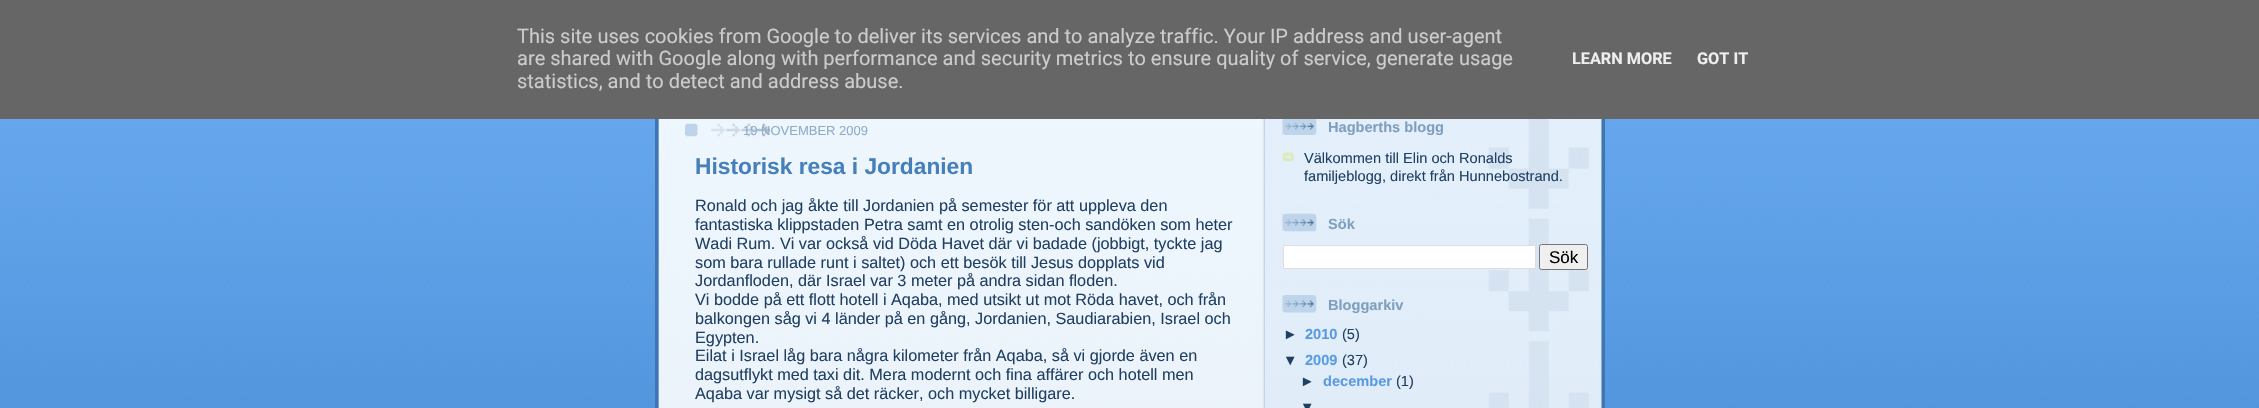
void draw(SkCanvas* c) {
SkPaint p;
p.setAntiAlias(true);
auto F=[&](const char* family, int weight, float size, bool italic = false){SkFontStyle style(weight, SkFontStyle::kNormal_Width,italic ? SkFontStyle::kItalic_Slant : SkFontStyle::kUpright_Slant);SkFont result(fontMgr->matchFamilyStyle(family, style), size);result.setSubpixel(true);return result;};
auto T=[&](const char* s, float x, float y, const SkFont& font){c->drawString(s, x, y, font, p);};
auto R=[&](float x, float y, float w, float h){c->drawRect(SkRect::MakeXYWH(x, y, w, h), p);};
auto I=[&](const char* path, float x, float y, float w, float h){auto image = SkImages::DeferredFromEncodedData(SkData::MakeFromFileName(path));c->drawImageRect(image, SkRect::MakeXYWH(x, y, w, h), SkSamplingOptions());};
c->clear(0xffffffff);
I("1.png",0,119,2259,289);
p.setColor(0xff666666);
R(0,0,2259,119);
auto f1 = F("Roboto",400,20);
p.setColor(0xffcccccc);
T("This site uses cookies from Google to deliver its services and to analyze traffic. Your IP address and user-agent",517,43,f1);
T("are shared with Google along with performance and security metrics to ensure quality of service, generate usage",517,65,f1);
T("statistics, and to detect and address abuse.",517,88,f1);
auto f2 = F("Roboto",700,16.25);
p.setColor(0xffeeeeee);
T("LEARN MORE",1572,64,f2);
T("GOT IT",1697,64,f2);
I("2.png",655,119,950,289);
I("3.png",658,119,604,289);
I("4.png",685,123,13,14);
I("5.png",711,123,59,14);
auto f3 = F("Liberation Sans",400,13);
p.setColor(0xff8facc8);
T("19 NOVEMBER 2009",743,135,f3);
auto f4 = F("Liberation Sans",700,22.75);
p.setColor(0xff477fba);
T("Historisk resa i Jordanien",695,174,f4);
auto f5 = F("Liberation Sans",400,16.25);
p.setColor(0xff204063);
T("Ronald och jag åkte till Jordanien på semester för att uppleva den",695,211,f5);
T("fantastiska klippstaden Petra samt en otrolig sten-och sandöken som heter",695,230,f5);
T("Wadi Rum. Vi var också vid Döda Havet där vi badade (jobbigt, tyckte jag",695,249,f5);
T("som bara rullade runt i saltet) och ett besök till Jesus dopplats vid",695,268,f5);
T("Jordanfloden, där Israel var 3 meter på andra sidan floden.",695,286,f5);
T("Vi bodde på ett flott hotell i Aqaba, med utsikt ut mot Röda havet, och från",695,305,f5);
T("balkongen såg vi 4 länder på en gång, Jordanien, Saudiarabien, Israel och",695,324,f5);
T("Egypten.",695,343,f5);
T("Eilat i Israel låg bara några kilometer från Aqaba, så vi gjorde även en",695,361,f5);
T("dagsutflykt med taxi dit. Mera modernt och fina affärer och hotell men",695,380,f5);
T("Aqaba var mysigt så det räcker, och mycket billigare.",695,399,f5);
I("6.png",1265,119,337,289);
I("7.png",1488,119,101,289);
I("8.png",1282,119,35,16);
auto f6 = F("Liberation Sans",700,14.6);
p.setColor(0xff809fbd);
T("Hagberths blogg",1328,132,f6);
I("9.png",1282,152,12,10);
auto f7 = F("Liberation Sans",400,14.6);
p.setColor(0xff204063);
T("Välkommen till Elin och Ronalds",1304,163,f7);
T("familjeblogg, direkt från Hunnebostrand.",1304,181,f7);
I("10.png",1282,213,35,19);
p.setColor(0xff809fbd);
T("Sök",1328,229,f6);
p.setColor(0xffffffff);
c->drawRect(SkRect::MakeXYWH(1283.5,245.5,252,23),p);
p.setStroke(true);
p.setStrokeWidth(1);
p.setColor(0xffdddddd);
c->drawRect(SkRect::MakeXYWH(1283.5,245.5,252,23),p);
p.setStroke(false);
p.setColor(0xffefefef);
c->drawRoundRect(SkRect::MakeXYWH(1539.5,244.5,48,25),2,2,p);
p.setStroke(true);
p.setColor(0xff767676);
c->drawRoundRect(SkRect::MakeXYWH(1539.5,244.5,48,25),2,2,p);
auto f8 = F("Liberation Sans",400,17);
p.setStroke(false);
p.setColor(0xff000000);
T("Sök",1549,263,f8);
I("11.png",1282,295,35,18);
p.setColor(0xff809fbd);
T("Bloggarkiv",1328,310,f6);
p.setColor(0xff204063);
T("►",1283,339,f6);
p.setColor(0xff599be2);
T("2010",1305,339,f6);
p.setColor(0xff204063);
T("(5)",1342,339,f7);
T("▼",1283,365,f6);
p.setColor(0xff599be2);
T("2009",1305,365,f6);
p.setColor(0xff204063);
T("(37)",1342,365,f7);
T("►",1300,386,f6);
p.setColor(0xff599be2);
T("december",1323,386,f6);
p.setColor(0xff204063);
T("(1)",1396,386,f7);
T("▼",1300,412,f6);
}
